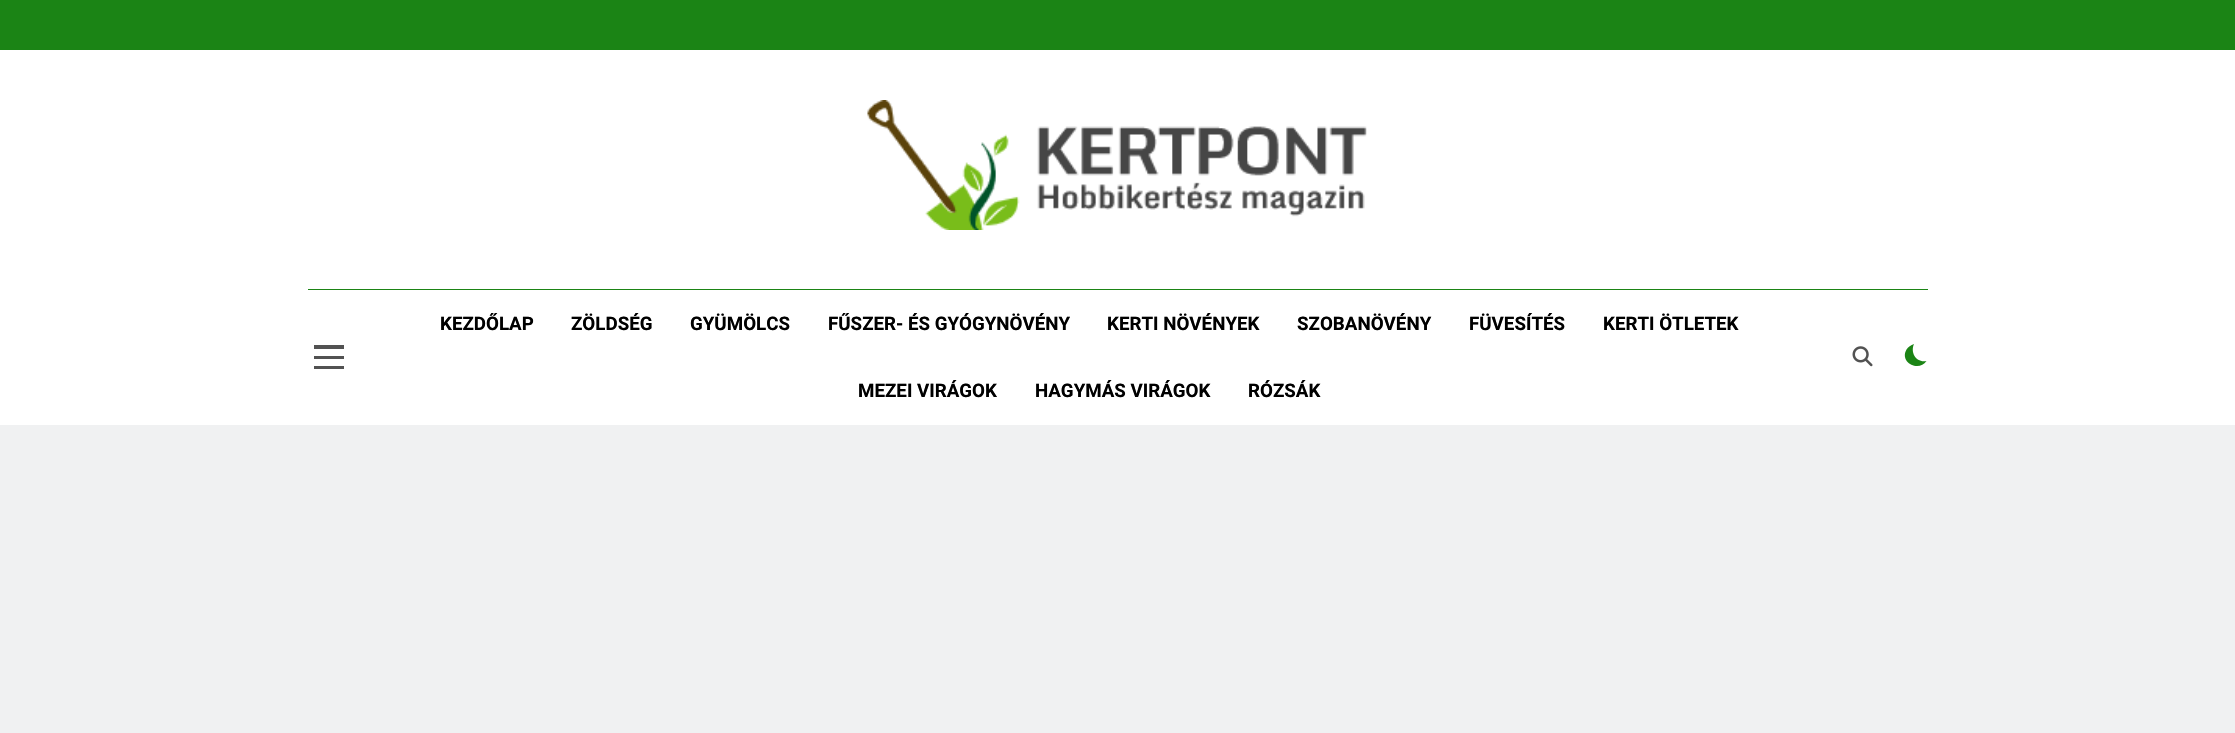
void draw(SkCanvas* c) {
SkPaint p;
p.setAntiAlias(true);
auto F=[&](const char* family, int weight, float size, bool italic = false){SkFontStyle style(weight, SkFontStyle::kNormal_Width,italic ? SkFontStyle::kItalic_Slant : SkFontStyle::kUpright_Slant);SkFont result(fontMgr->matchFamilyStyle(family, style), size);result.setSubpixel(true);return result;};
auto T=[&](const char* s, float x, float y, const SkFont& font){c->drawString(s, x, y, font, p);};
auto R=[&](float x, float y, float w, float h){c->drawRect(SkRect::MakeXYWH(x, y, w, h), p);};
auto I=[&](const char* path, float x, float y, float w, float h){auto image = SkImages::DeferredFromEncodedData(SkData::MakeFromFileName(path));c->drawImageRect(image, SkRect::MakeXYWH(x, y, w, h), SkSamplingOptions());};
auto P=[&](const char* data, bool evenOdd = false){SkPath result = *SkParsePath::FromSVGString(data);if (evenOdd) result.setFillType(SkPathFillType::kEvenOdd);return result;};
c->clear(0xfff0f1f2);
p.setColor(0xff1b8415);
R(0,0,2235,50);
p.setColor(0xffffffff);
R(0,50,2235,375);
I("1.png",867,100,500,130);
p.setColor(0xff1b8415);
R(308,289,1620,1);
p.setColor(0xff525252);
R(314,345,30,4);
R(314,356,30,3);
R(314,366,30,3);
auto f1 = F("Roboto",700,18.75);
p.setColor(0xff000000);
T("KEZDŐLAP",440,330,f1);
T("ZÖLDSÉG",571,330,f1);
T("GYÜMÖLCS",690,330,f1);
T("FŰSZER- ÉS GYÓGYNÖVÉNY",828,330,f1);
T("KERTI NÖVÉNYEK",1107,330,f1);
T("SZOBANÖVÉNY",1297,330,f1);
T("FÜVESÍTÉS",1469,330,f1);
T("KERTI ÖTLETEK",1603,330,f1);
T("MEZEI VIRÁGOK",858,397,f1);
T("HAGYMÁS VIRÁGOK",1035,397,f1);
T("RÓZSÁK",1248,397,f1);
I("2.png",1852,346,21,21);
p.setColor(0xff1b8415);
c->drawPath(P("M1926.5 361c-10 2-16.5-8-12.5-17c-3 1-6 3-7.5 5.5c-7.5 13 12.5 23 20 11.5z"),p);
}
